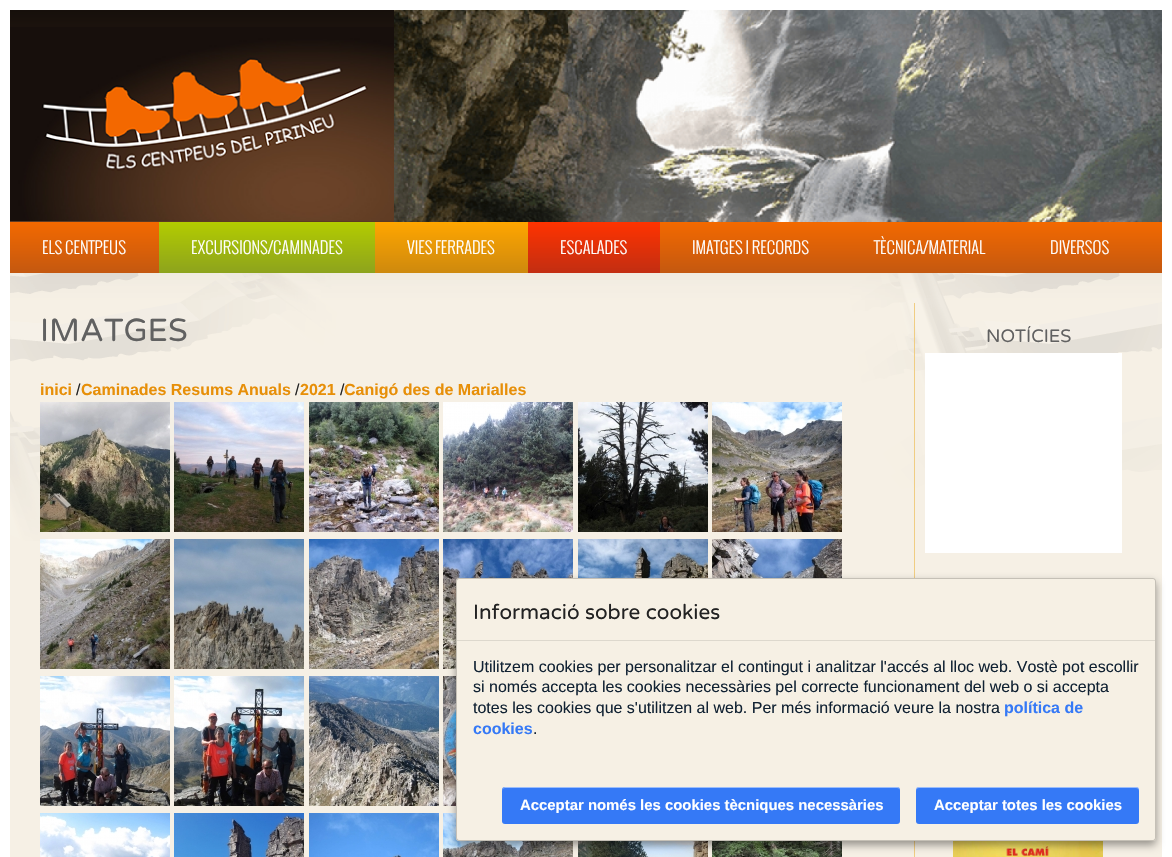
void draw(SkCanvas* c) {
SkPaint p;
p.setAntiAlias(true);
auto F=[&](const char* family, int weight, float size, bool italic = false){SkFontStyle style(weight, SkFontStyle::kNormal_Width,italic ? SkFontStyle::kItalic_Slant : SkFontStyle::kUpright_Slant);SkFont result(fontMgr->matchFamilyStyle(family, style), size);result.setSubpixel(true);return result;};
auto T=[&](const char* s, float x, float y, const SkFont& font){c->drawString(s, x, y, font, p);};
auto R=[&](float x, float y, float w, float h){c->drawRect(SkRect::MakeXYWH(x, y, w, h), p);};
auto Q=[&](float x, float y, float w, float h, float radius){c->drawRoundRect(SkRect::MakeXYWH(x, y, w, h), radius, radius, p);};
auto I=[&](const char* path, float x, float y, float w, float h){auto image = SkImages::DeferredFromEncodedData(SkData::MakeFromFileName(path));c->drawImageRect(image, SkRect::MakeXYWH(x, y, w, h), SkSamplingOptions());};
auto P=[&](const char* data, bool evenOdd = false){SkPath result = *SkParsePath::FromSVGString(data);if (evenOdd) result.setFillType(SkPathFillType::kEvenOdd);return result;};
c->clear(0xffffffff);
p.setColor(0xffede1ca);
R(10,541,1152,316);
I("1.png",10,273,1152,268);
{
const SkColor colors[] = {0xff160f0b,0xff5c3a23};
const float stops[] = {0,1};
const SkPoint ends[] = {{586,10}, {586,222}};
p.setShader(SkGradientShader::MakeLinear(ends, colors, stops, 2, SkTileMode::kClamp));
p.setAlpha(255);
}
R(10,10,384,212);
I("2.png",10,27,384,194);
I("3.png",394,10,768,212);
{
const SkColor colors[] = {0xfff36900,0xffc45810};
const float stops[] = {0,1};
const SkPoint ends[] = {{586,222}, {586,273}};
p.setShader(SkGradientShader::MakeLinear(ends, colors, stops, 2, SkTileMode::kClamp));
p.setAlpha(255);
}
R(10,222,1152,51);
auto f1 = F("Oswald",300,16.25);
p.setShader(nullptr);
p.setColor(0xffffffff);
T("ELS CENTPEUS",42,254,f1);
{
const SkColor colors[] = {0xffb3cc00,0xff8da31d};
const float stops[] = {0,1};
const SkPoint ends[] = {{267,222}, {267,273}};
p.setShader(SkGradientShader::MakeLinear(ends, colors, stops, 2, SkTileMode::kClamp));
p.setAlpha(255);
}
R(159,222,216,51);
p.setShader(nullptr);
p.setColor(0xffffffff);
T("EXCURSIONS/CAMINADES",191,254,f1);
{
const SkColor colors[] = {0xffffa600,0xffce890e};
const float stops[] = {0,1};
const SkPoint ends[] = {{452,222}, {452,273}};
p.setShader(SkGradientShader::MakeLinear(ends, colors, stops, 2, SkTileMode::kClamp));
p.setAlpha(255);
}
R(375,222,153,51);
p.setShader(nullptr);
p.setColor(0xffffffff);
T("VIES FERRADES",407,254,f1);
{
const SkColor colors[] = {0xffff3300,0xffc22e12};
const float stops[] = {0,1};
const SkPoint ends[] = {{594,222}, {594,273}};
p.setShader(SkGradientShader::MakeLinear(ends, colors, stops, 2, SkTileMode::kClamp));
p.setAlpha(255);
}
R(528,222,132,51);
p.setShader(nullptr);
p.setColor(0xffffffff);
T("ESCALADES",560,254,f1);
T("IMATGES I RECORDS",692,254,f1);
T("TÈCNICA/MATERIAL",874,254,f1);
T("DIVERSOS",1050,254,f1);
p.setColor(0x80ffffff);
R(10,273,1152,584);
auto f2 = F("Varela Round",400,32);
p.setColor(0xff616161);
T("IMATGES",40,341,f2);
auto f3 = F("Liberation Sans",700,16);
p.setColor(0xffe78f08);
T("inici",40,395,f3);
auto f4 = F("Liberation Sans",400,16);
p.setColor(0xff222222);
T("/",76,395,f4);
p.setColor(0xffe78f08);
T("Caminades Resums Anuals",81,395,f3);
p.setColor(0xff222222);
T("/",295,395,f4);
p.setColor(0xffe78f08);
T("2021",300,395,f3);
p.setColor(0xff222222);
T("/",340,395,f4);
p.setColor(0xffe78f08);
T("Canigó des de Marialles",344,395,f3);
I("4.png",40,402,130,130);
I("5.png",174,402,130,130);
I("6.png",309,402,130,130);
I("7.png",443,402,130,130);
I("8.png",578,402,130,130);
I("9.png",712,402,130,130);
I("10.png",40,539,130,130);
I("11.png",174,539,130,130);
I("12.png",309,539,130,130);
I("13.png",443,539,130,130);
I("14.png",578,539,130,39);
I("15.png",712,539,130,39);
I("16.png",40,676,130,130);
I("17.png",174,676,130,130);
I("18.png",309,676,130,130);
I("19.png",443,676,13,130);
I("20.png",40,813,130,44);
I("21.png",174,813,130,44);
I("22.png",309,813,130,44);
I("23.png",443,813,130,44);
I("24.png",578,841,130,16);
I("25.png",712,841,130,16);
p.setColor(0xfff0cd82);
R(914,303,1,554);
auto f5 = F("Varela Round",400,18);
p.setColor(0xff616161);
T("NOTÍCIES",986,342,f5);
p.setColor(0xffffffff);
R(925,353,197,200);
I("26.png",953,841,150,16);
p.setColor(0x66000000);
p.setMaskFilter(SkMaskFilter::MakeBlur(kNormal_SkBlurStyle, 4));
c->drawRoundRect(SkRect::MakeXYWH(456,582,700,263),3,3,p);
p.setMaskFilter(nullptr);
p.setColor(0xfff6f0e4);
Q(456,578,700,263,3);
p.setStroke(true);
p.setStrokeWidth(1);
p.setColor(0x33000000);
c->drawRoundRect(SkRect::MakeXYWH(456.5,578.5,699,262),2.5,2.5,p);
p.setStroke(false);
p.setColor(0xffddd8cd);
R(457,640,698,1);
auto f6 = F("Varela Round",400,20.75);
p.setColor(0xff222222);
T("Informació sobre cookies",473,619,f6);
p.setColor(0xff112233);
T("Utilitzem cookies per personalitzar el contingut i analitzar l'accés al lloc web. Vostè pot escollir",473,672,f4);
T("si només accepta les cookies necessàries pel correcte funcionament del web o si accepta",473,692,f4);
T("totes les cookies que s'utilitzen al web. Per més informació veure la nostra",473,713,f4);
p.setColor(0xff3579f6);
T("política de",1004,713,f3);
T("cookies",473,734,f3);
p.setColor(0xff112233);
T(".",533,734,f4);
p.setColor(0xff3579f6);
Q(502,787,398,37,3);
p.setColor(0x80ffffff);
c->drawPath(P("M505 788h392c2 0 3 1 3 3c0-2-1-4-3-4h-392l-2 1l-1 3c0-2 1-3 3-3z"),p);
auto f7 = F("Liberation Sans",700,14.9);
p.setColor(0xffffffff);
T("Acceptar només les cookies tècniques necessàries",520,810,f7);
p.setColor(0xff3579f6);
Q(916,787,223,37,3);
p.setColor(0x80ffffff);
c->drawPath(P("M919 788h217c2 0 3 1 3 3v-1c0-2-1-3-3-3h-217c-2 0-3 1-3 3v1c0-2 1-3 3-3z"),p);
p.setColor(0xffffffff);
T("Acceptar totes les cookies",934,810,f7);
}
